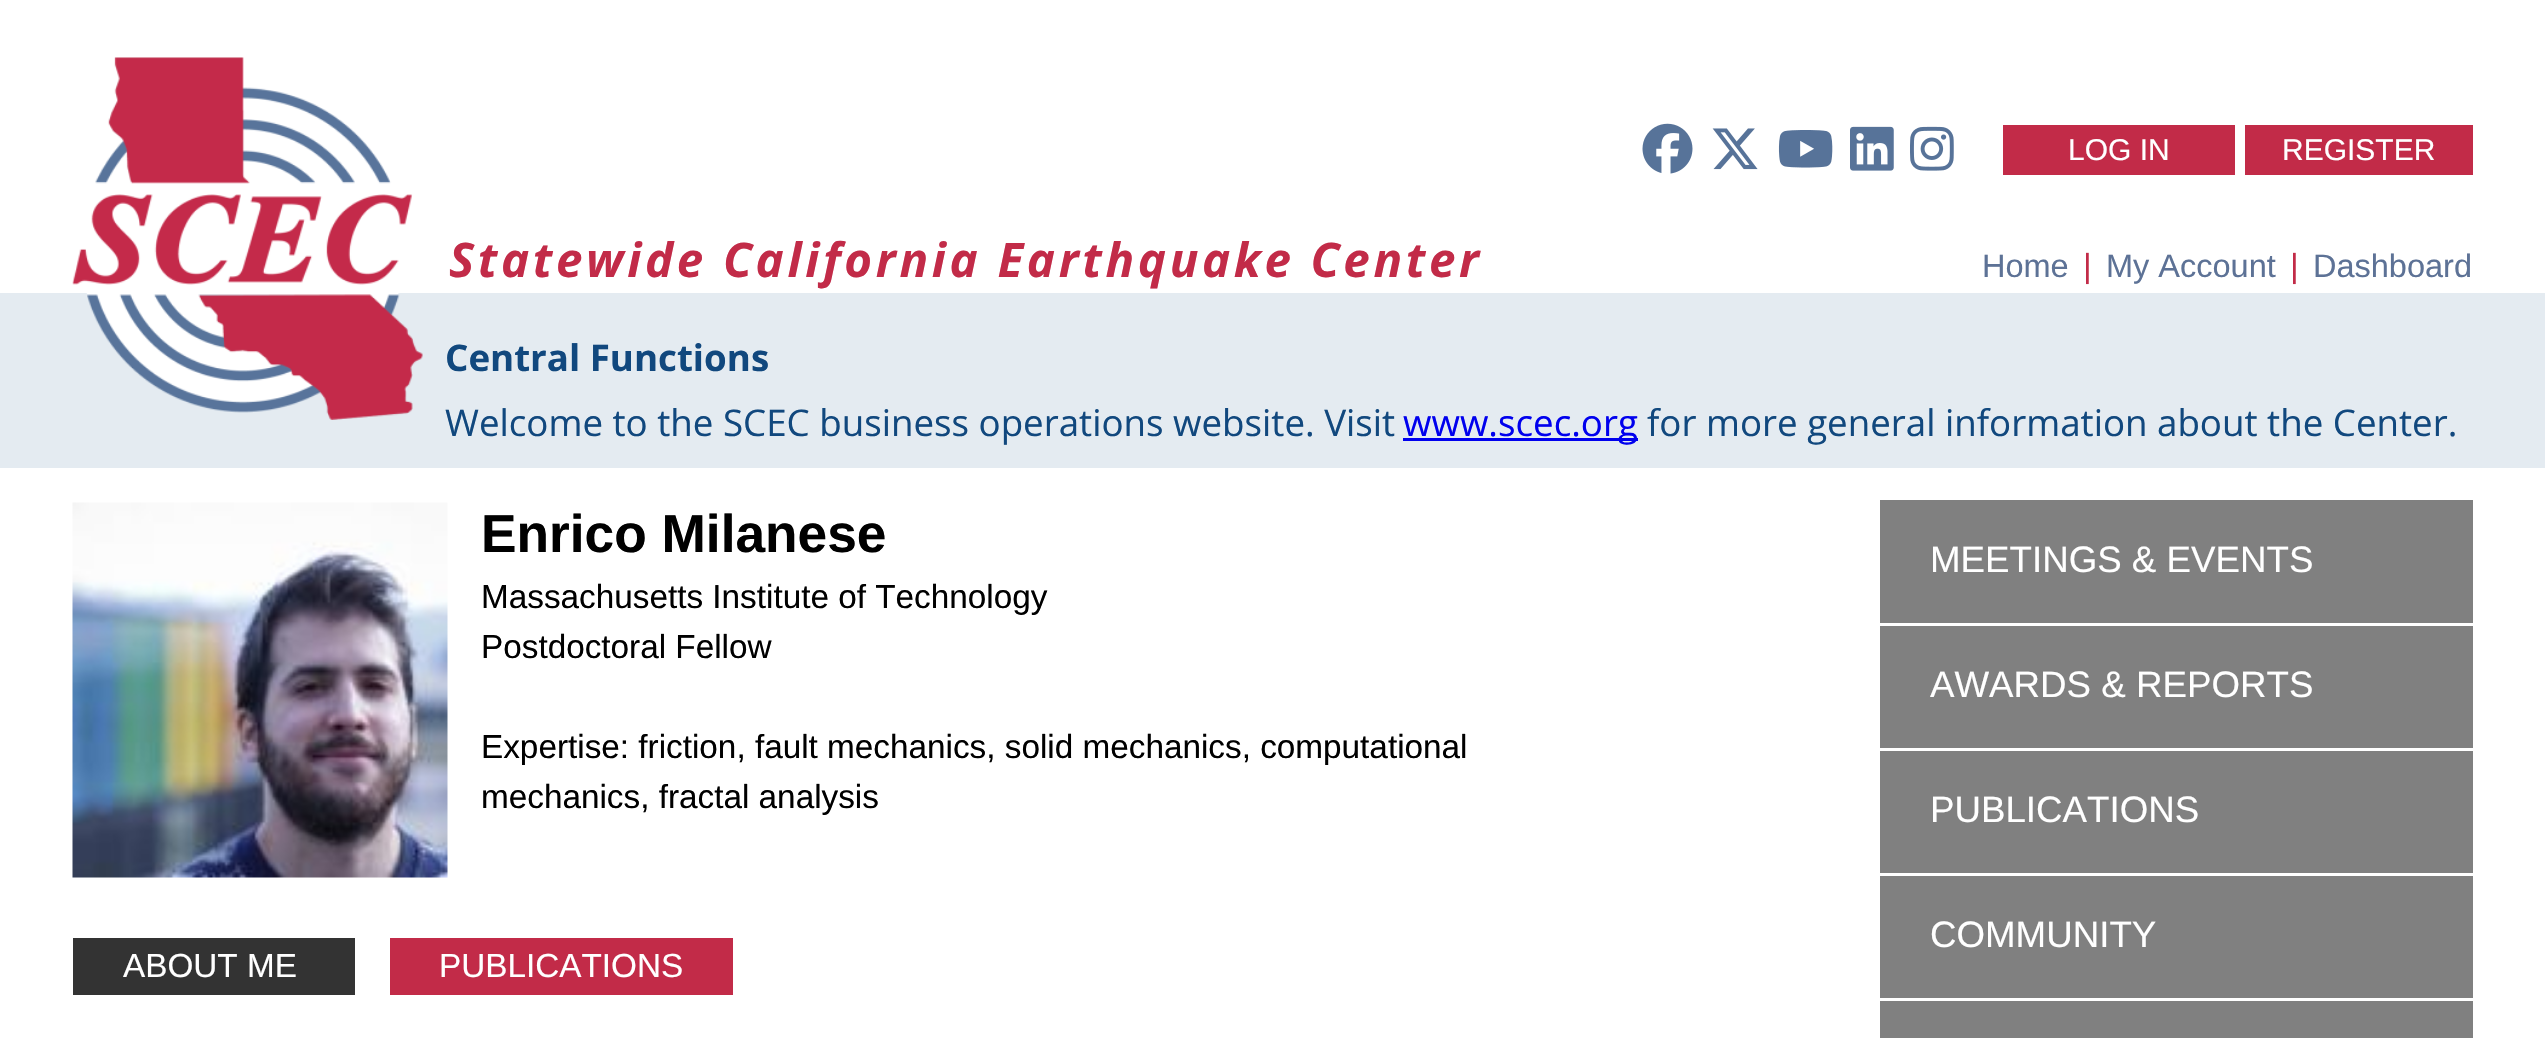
void draw(SkCanvas* c) {
SkPaint p;
p.setAntiAlias(true);
auto F=[&](const char* family, int weight, float size, bool italic = false){SkFontStyle style(weight, SkFontStyle::kNormal_Width,italic ? SkFontStyle::kItalic_Slant : SkFontStyle::kUpright_Slant);SkFont result(fontMgr->matchFamilyStyle(family, style), size);result.setSubpixel(true);return result;};
auto T=[&](const char* s, float x, float y, const SkFont& font){c->drawString(s, x, y, font, p);};
auto L=[&](const char* s, float x, float y, const SkFont& font, const SkPaint& ink, float letter, float word){std::vector<SkGlyphID> glyphs(font.countText(s, strlen(s), SkTextEncoding::kUTF8));std::vector<float> xs(glyphs.size());font.textToGlyphs(s, strlen(s), SkTextEncoding::kUTF8, glyphs);font.getXPos(glyphs, xs, x);float extra = 0;for (size_t i = 0; i < glyphs.size(); i++) {xs[i] += extra;extra += letter + word * (glyphs[i] == font.unicharToGlyph(' '));}c->drawTextBlob(SkTextBlob::MakeFromPosHGlyphs(glyphs, xs, y, font), 0, 0, ink);};
auto R=[&](float x, float y, float w, float h){c->drawRect(SkRect::MakeXYWH(x, y, w, h), p);};
auto I=[&](const char* path, float x, float y, float w, float h){auto image = SkImages::DeferredFromEncodedData(SkData::MakeFromFileName(path));c->drawImageRect(image, SkRect::MakeXYWH(x, y, w, h), SkSamplingOptions());};
c->clear(0xffffffff);
I("1.png",1642,123,51,51);
I("2.png",1712,128,46,42);
I("3.png",1778,130,55,38);
I("4.png",1850,126,44,45);
I("5.png",1910,126,44,45);
p.setColor(0xffc22b48);
R(2003,125,232,50);
auto f1 = F("Liberation Sans",400,30);
p.setColor(0xffffffff);
T("LOG IN",2068,160,f1);
p.setColor(0xffc22b48);
R(2245,125,228,50);
p.setColor(0xffffffff);
T("REGISTER",2282,160,f1);
p.setColor(0xffe4ebf1);
R(0,293,2545,175);
I("6.png",72,57,351,363);
auto f2 = F("Open Sans",700,47.5,true);
p.setColor(0xffc22b48);
L("Statewide California Earthquake Center",449,277,f2,p,3.65,0);
auto f3 = F("Liberation Sans",400,32.5);
p.setColor(0xff5d7296);
T("Home",1982,277,f3);
auto f4 = F("Liberation Sans",400,33.3);
p.setColor(0xffc22b48);
T("|",2083,277,f4);
p.setColor(0xff5d7296);
T("My Account",2106,277,f3);
p.setColor(0xffc22b48);
T("|",2290,277,f4);
p.setColor(0xff5d7296);
T("Dashboard",2313,277,f3);
auto f5 = F("Open Sans",700,36.7);
p.setColor(0xff11487e);
T("Central Functions",445,371,f5);
auto f6 = F("Open Sans",400,36.7);
T("Welcome to the SCEC business operations website. Visit",445,436,f6);
p.setColor(0xff0000ee);
R(1403,438,235,3);
T("www.scec.org",1403,436,f6);
p.setColor(0xff11487e);
T("for more general information about the Center.",1647,436,f6);
I("7.png",72,502,376,376);
auto f7 = F("Liberation Sans",700,53.25);
p.setColor(0xff000000);
T("Enrico Milanese",481,552,f7);
T("Massachusetts Institute of Technology",481,608,f4);
T("Postdoctoral Fellow",481,658,f4);
T("Expertise: friction, fault mechanics, solid mechanics, computational",481,758,f4);
T("mechanics, fractal analysis",481,808,f4);
p.setColor(0xff333333);
R(73,938,282,57);
p.setColor(0xffffffff);
T("ABOUT ME",123,977,f4);
p.setColor(0xffc22b48);
R(390,938,343,57);
p.setColor(0xffffffff);
T("PUBLICATIONS",439,977,f4);
p.setColor(0xff808080);
R(1880,500,593,538);
p.setColor(0xffffffff);
R(1880,623,593,3);
auto f8 = F("Liberation Sans",400,36.7);
T("MEETINGS & EVENTS",1930,572,f8);
R(1880,748,593,3);
T("AWARDS & REPORTS",1930,697,f8);
R(1880,873,593,3);
T("PUBLICATIONS",1930,822,f8);
R(1880,998,593,3);
T("COMMUNITY",1930,947,f8);
}
